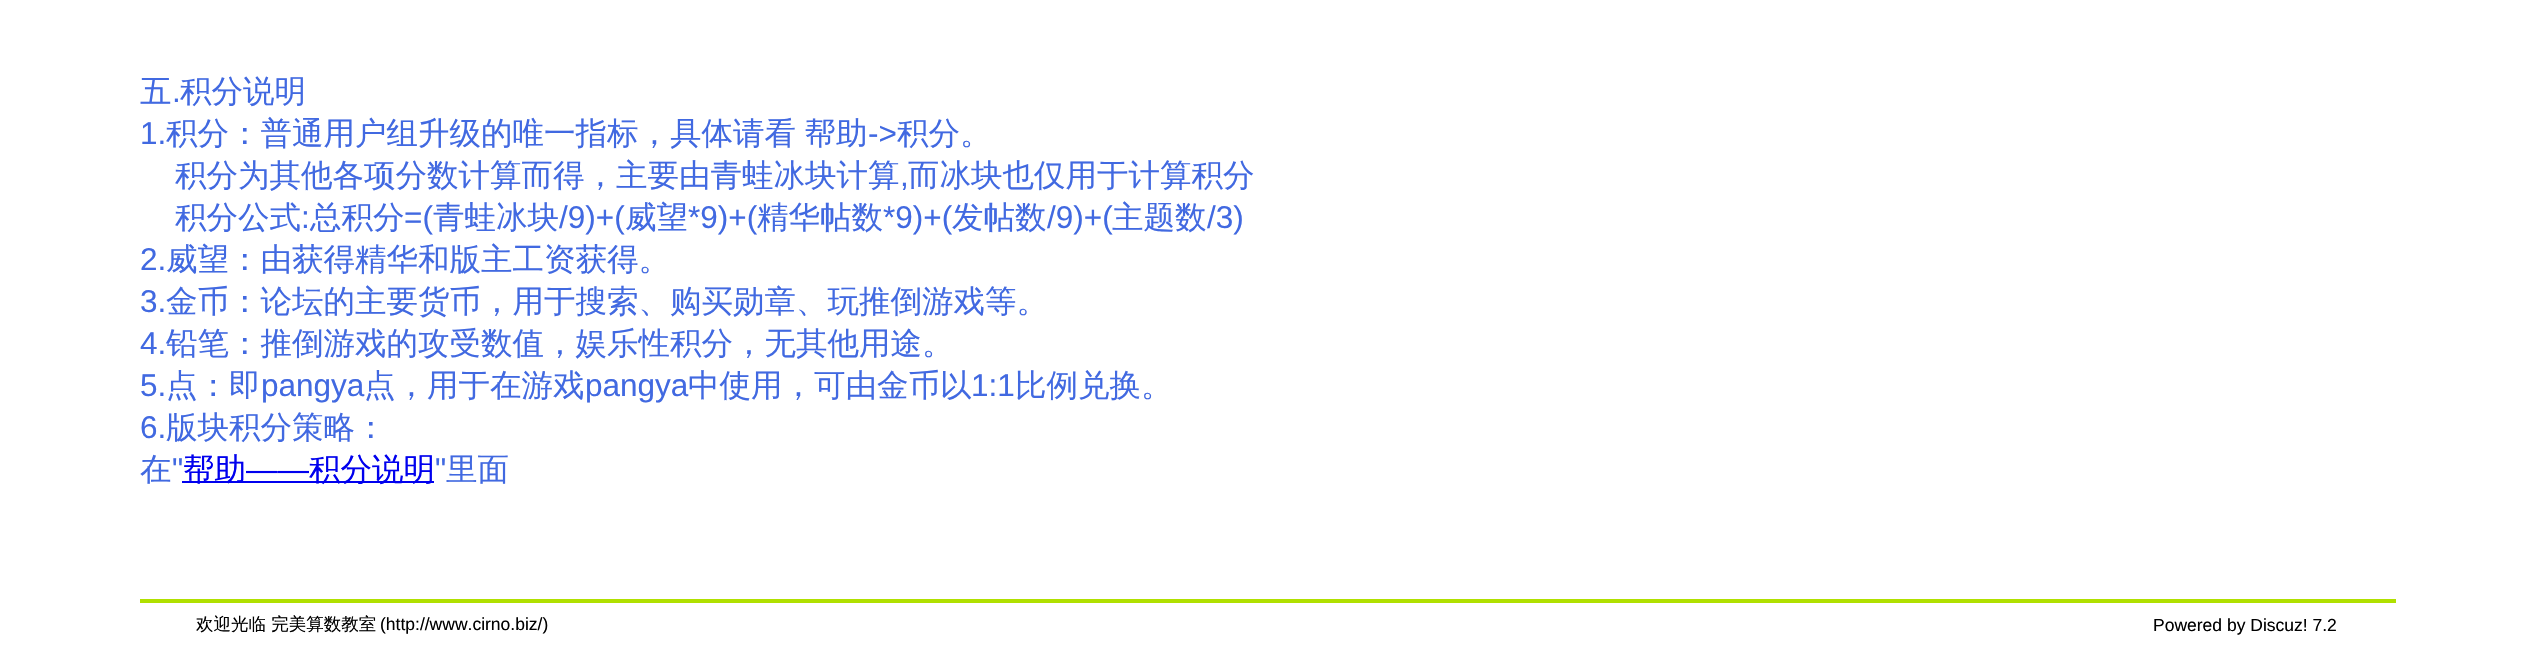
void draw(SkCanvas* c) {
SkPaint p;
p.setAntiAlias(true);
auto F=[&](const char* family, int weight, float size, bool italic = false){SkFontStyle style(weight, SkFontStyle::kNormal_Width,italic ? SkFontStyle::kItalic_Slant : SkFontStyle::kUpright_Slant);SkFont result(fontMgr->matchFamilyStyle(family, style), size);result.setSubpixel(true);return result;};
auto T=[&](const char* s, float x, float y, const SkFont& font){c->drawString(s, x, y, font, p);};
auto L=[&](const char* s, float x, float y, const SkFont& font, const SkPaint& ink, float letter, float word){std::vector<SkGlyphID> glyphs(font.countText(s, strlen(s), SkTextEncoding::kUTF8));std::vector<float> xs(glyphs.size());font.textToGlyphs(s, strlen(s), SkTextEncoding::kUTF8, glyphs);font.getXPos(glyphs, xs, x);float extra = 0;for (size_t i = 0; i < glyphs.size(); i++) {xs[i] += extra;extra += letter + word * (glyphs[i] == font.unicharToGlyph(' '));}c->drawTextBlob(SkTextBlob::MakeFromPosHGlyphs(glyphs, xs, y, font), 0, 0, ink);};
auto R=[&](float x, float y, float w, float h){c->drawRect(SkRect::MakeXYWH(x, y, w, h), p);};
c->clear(0xffffffff);
auto f1 = F("WenQuanYi Zen Hei",500,31.5);
p.setColor(0xff4169e1);
T("五",140,102,f1);
auto f2 = F("Liberation Sans",400,31.5);
T(".",172,102,f2);
T("积分说明",180,102,f1);
T("1.",140,144,f2);
L("积分：普通用户组升级的唯一指标，具体请看 帮助",166,144,f1,p,0,-1);
T("->",868,144,f2);
T("积分。",897,144,f1);
T("积分为其他各项分数计算而得，主要由青蛙冰块计算",175,186,f1);
T(",",900,186,f2);
T("而冰块也仅用于计算积分",908,186,f1);
T("积分公式",175,228,f1);
T(":",301,228,f2);
T("总积分",310,228,f1);
T("=(",404,228,f2);
T("青蛙冰块",433,228,f1);
T("/9)+(",559,228,f2);
T("威望",625,228,f1);
T("*9)+(",688,228,f2);
T("精华帖数",757,228,f1);
T("*9)+(",883,228,f2);
T("发帖数",952,228,f1);
T("/9)+(",1047,228,f2);
T("主题数",1112,228,f1);
T("/3)",1207,228,f2);
T("2.",140,270,f2);
T("威望：由获得精华和版主工资获得。",166,270,f1);
T("3.",140,312,f2);
T("金币：论坛的主要货币，用于搜索、购买勋章、玩推倒游戏等。",166,312,f1);
T("4.",140,354,f2);
T("铅笔：推倒游戏的攻受数值，娱乐性积分，无其他用途。",166,354,f1);
T("5.",140,396,f2);
T("点：即",166,396,f1);
T("pangya",261,396,f2);
T("点，用于在游戏",364,396,f1);
T("pangya",585,396,f2);
T("中使用，可由金币以",688,396,f1);
T("1:1",971,396,f2);
T("比例兑换。",1015,396,f1);
T("6.",140,438,f2);
T("版块积分策略：",166,438,f1);
T("在",140,480,f1);
T("\"",172,480,f2);
p.setColor(0xff0000ee);
R(182,481,252,2);
T("帮助",183,480,f1);
T("——",246,480,f2);
T("积分说明",309,480,f1);
p.setColor(0xff4169e1);
T("\"",435,480,f2);
T("里面",446,480,f1);
p.setColor(0xffb0e000);
R(140,599,2256,4);
auto f3 = F("WenQuanYi Zen Hei",500,17.5);
p.setColor(0xff000000);
T("欢迎光临 完美算数教室",196,630,f3);
auto f4 = F("Liberation Sans",400,17.5);
T("(http://www.cirno.biz/)",380,630,f4);
T("Powered by Discuz! 7.2",2153,631,f4);
}
